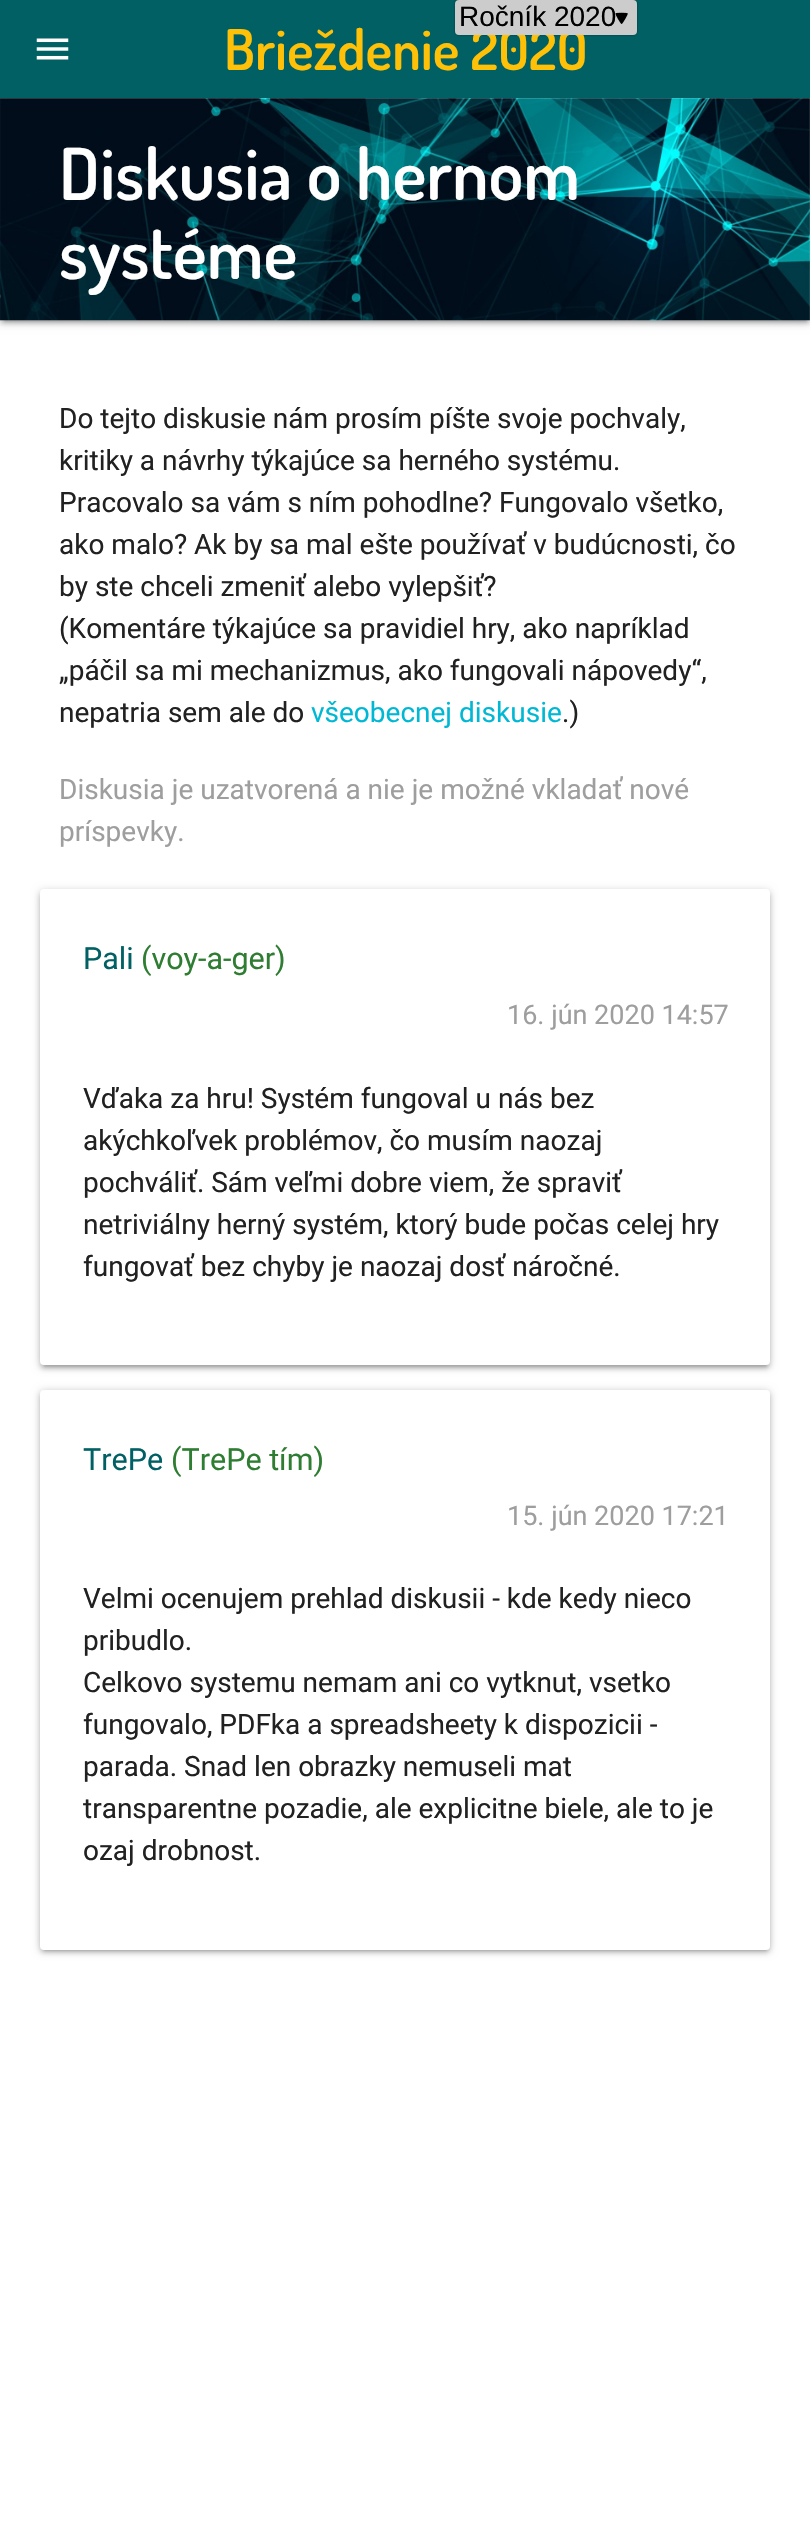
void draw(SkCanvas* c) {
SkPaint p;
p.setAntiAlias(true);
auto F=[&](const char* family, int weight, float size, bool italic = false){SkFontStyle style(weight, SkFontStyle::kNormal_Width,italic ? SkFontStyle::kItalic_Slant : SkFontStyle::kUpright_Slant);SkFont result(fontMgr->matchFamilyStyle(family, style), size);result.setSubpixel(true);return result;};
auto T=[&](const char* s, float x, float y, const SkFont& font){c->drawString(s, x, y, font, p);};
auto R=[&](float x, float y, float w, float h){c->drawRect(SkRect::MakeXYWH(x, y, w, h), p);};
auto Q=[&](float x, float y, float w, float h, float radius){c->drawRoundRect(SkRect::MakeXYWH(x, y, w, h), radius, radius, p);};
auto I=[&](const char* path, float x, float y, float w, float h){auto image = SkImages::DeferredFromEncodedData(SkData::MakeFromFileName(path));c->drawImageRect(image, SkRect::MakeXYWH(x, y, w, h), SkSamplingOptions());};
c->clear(0xffffffff);
p.setColor(0x33000000);
p.setMaskFilter(SkMaskFilter::MakeBlur(kNormal_SkBlurStyle, 4.5));
c->drawRect(SkRect::MakeXYWH(0,2,810,320),p);
p.setMaskFilter(nullptr);
p.setColor(0x1f000000);
p.setMaskFilter(SkMaskFilter::MakeBlur(kNormal_SkBlurStyle, 1));
c->drawRect(SkRect::MakeXYWH(4,9,803,313),p);
p.setMaskFilter(nullptr);
p.setColor(0x24000000);
p.setMaskFilter(SkMaskFilter::MakeBlur(kNormal_SkBlurStyle, 2));
c->drawRect(SkRect::MakeXYWH(0,4,810,320),p);
p.setMaskFilter(nullptr);
p.setColor(0xff006064);
R(0,0,810,98);
p.setColor(0x80000000);
p.setMaskFilter(SkMaskFilter::MakeBlur(kNormal_SkBlurStyle, 1));
c->drawRoundRect(SkRect::MakeXYWH(455,0,182,35),4,4,p);
p.setMaskFilter(nullptr);
auto f1 = F("Dosis",600,56);
p.setColor(0xffffc107);
T("Brieždenie 2020",224,70,f1);
p.setColor(0xffcccccc);
Q(455,0,182,35,4);
I("1.png",615,12,13,12);
auto f2 = F("Liberation Sans",400,28);
p.setColor(0xff000000);
T("Ročník 2020",459,26,f2);
I("2.png",36,38,33,22);
I("3.png",0,98,810,223);
auto f3 = F("Dosis",600,71.5);
p.setColor(0xffffffff);
T("Diskusia o hernom",59,200,f3);
T("systéme",59,279,f3);
auto f4 = F("Roboto",400,28);
p.setColor(0xff212121);
T("Do tejto diskusie nám prosím píšte svoje pochvaly,",59,428,f4);
T("kritiky a návrhy týkajúce sa herného systému.",59,470,f4);
T("Pracovalo sa vám s ním pohodlne? Fungovalo všetko,",59,512,f4);
T("ako malo? Ak by sa mal ešte používať v budúcnosti, čo",59,554,f4);
T("by ste chceli zmeniť alebo vylepšiť?",59,596,f4);
T("(Komentáre týkajúce sa pravidiel hry, ako napríklad",59,638,f4);
T("„páčil sa mi mechanizmus, ako fungovali nápovedy“,",59,680,f4);
T("nepatria sem ale do",59,722,f4);
p.setColor(0xff00b8d4);
T("všeobecnej diskusie",311,722,f4);
p.setColor(0xff212121);
T(".)",562,722,f4);
p.setColor(0xff9e9e9e);
T("Diskusia je uzatvorená a nie je možné vkladať nové",59,799,f4);
T("príspevky.",59,841,f4);
p.setColor(0x33000000);
p.setMaskFilter(SkMaskFilter::MakeBlur(kNormal_SkBlurStyle, 4.5));
c->drawRoundRect(SkRect::MakeXYWH(40,891,730,476),4,4,p);
p.setMaskFilter(nullptr);
p.setColor(0x1f000000);
p.setMaskFilter(SkMaskFilter::MakeBlur(kNormal_SkBlurStyle, 1));
c->drawRect(SkRect::MakeXYWH(44,898,723,469),p);
p.setMaskFilter(nullptr);
p.setColor(0x24000000);
p.setMaskFilter(SkMaskFilter::MakeBlur(kNormal_SkBlurStyle, 2));
c->drawRoundRect(SkRect::MakeXYWH(40,893,730,476),4,4,p);
p.setMaskFilter(nullptr);
p.setColor(0xffffffff);
Q(40,889,730,476,4);
auto f5 = F("Roboto",400,30.5);
p.setColor(0xff006064);
T("Pali",83,969,f5);
p.setColor(0xff2e7d32);
T("(voy-a-ger)",141,969,f5);
auto f6 = F("Roboto",400,27);
p.setColor(0xff9e9e9e);
T("16. jún 2020 14:57",507,1024,f6);
p.setColor(0xff212121);
T("Vďaka za hru! Systém fungoval u nás bez",83,1108,f4);
T("akýchkoľvek problémov, čo musím naozaj",83,1150,f4);
T("pochváliť. Sám veľmi dobre viem, že spraviť",83,1192,f4);
T("netriviálny herný systém, ktorý bude počas celej hry",83,1234,f4);
T("fungovať bez chyby je naozaj dosť náročné.",83,1276,f4);
p.setColor(0x33000000);
p.setMaskFilter(SkMaskFilter::MakeBlur(kNormal_SkBlurStyle, 4.5));
c->drawRoundRect(SkRect::MakeXYWH(40,1391,730,560),4,4,p);
p.setMaskFilter(nullptr);
p.setColor(0x1f000000);
p.setMaskFilter(SkMaskFilter::MakeBlur(kNormal_SkBlurStyle, 1));
c->drawRect(SkRect::MakeXYWH(44,1398,723,553),p);
p.setMaskFilter(nullptr);
p.setColor(0x24000000);
p.setMaskFilter(SkMaskFilter::MakeBlur(kNormal_SkBlurStyle, 2));
c->drawRoundRect(SkRect::MakeXYWH(40,1393,730,560),4,4,p);
p.setMaskFilter(nullptr);
p.setColor(0xffffffff);
Q(40,1390,730,560,4);
p.setColor(0xff006064);
T("TrePe",83,1470,f5);
p.setColor(0xff2e7d32);
T("(TrePe tím)",171,1470,f5);
p.setColor(0xff9e9e9e);
T("15. jún 2020 17:21",507,1525,f6);
p.setColor(0xff212121);
T("Velmi ocenujem prehlad diskusii - kde kedy nieco",83,1608,f4);
T("pribudlo.",83,1650,f4);
T("Celkovo systemu nemam ani co vytknut, vsetko",83,1692,f4);
T("fungovalo, PDFka a spreadsheety k dispozicii -",83,1734,f4);
T("parada. Snad len obrazky nemuseli mat",83,1776,f4);
T("transparentne pozadie, ale explicitne biele, ale to je",83,1818,f4);
T("ozaj drobnost.",83,1860,f4);
}
